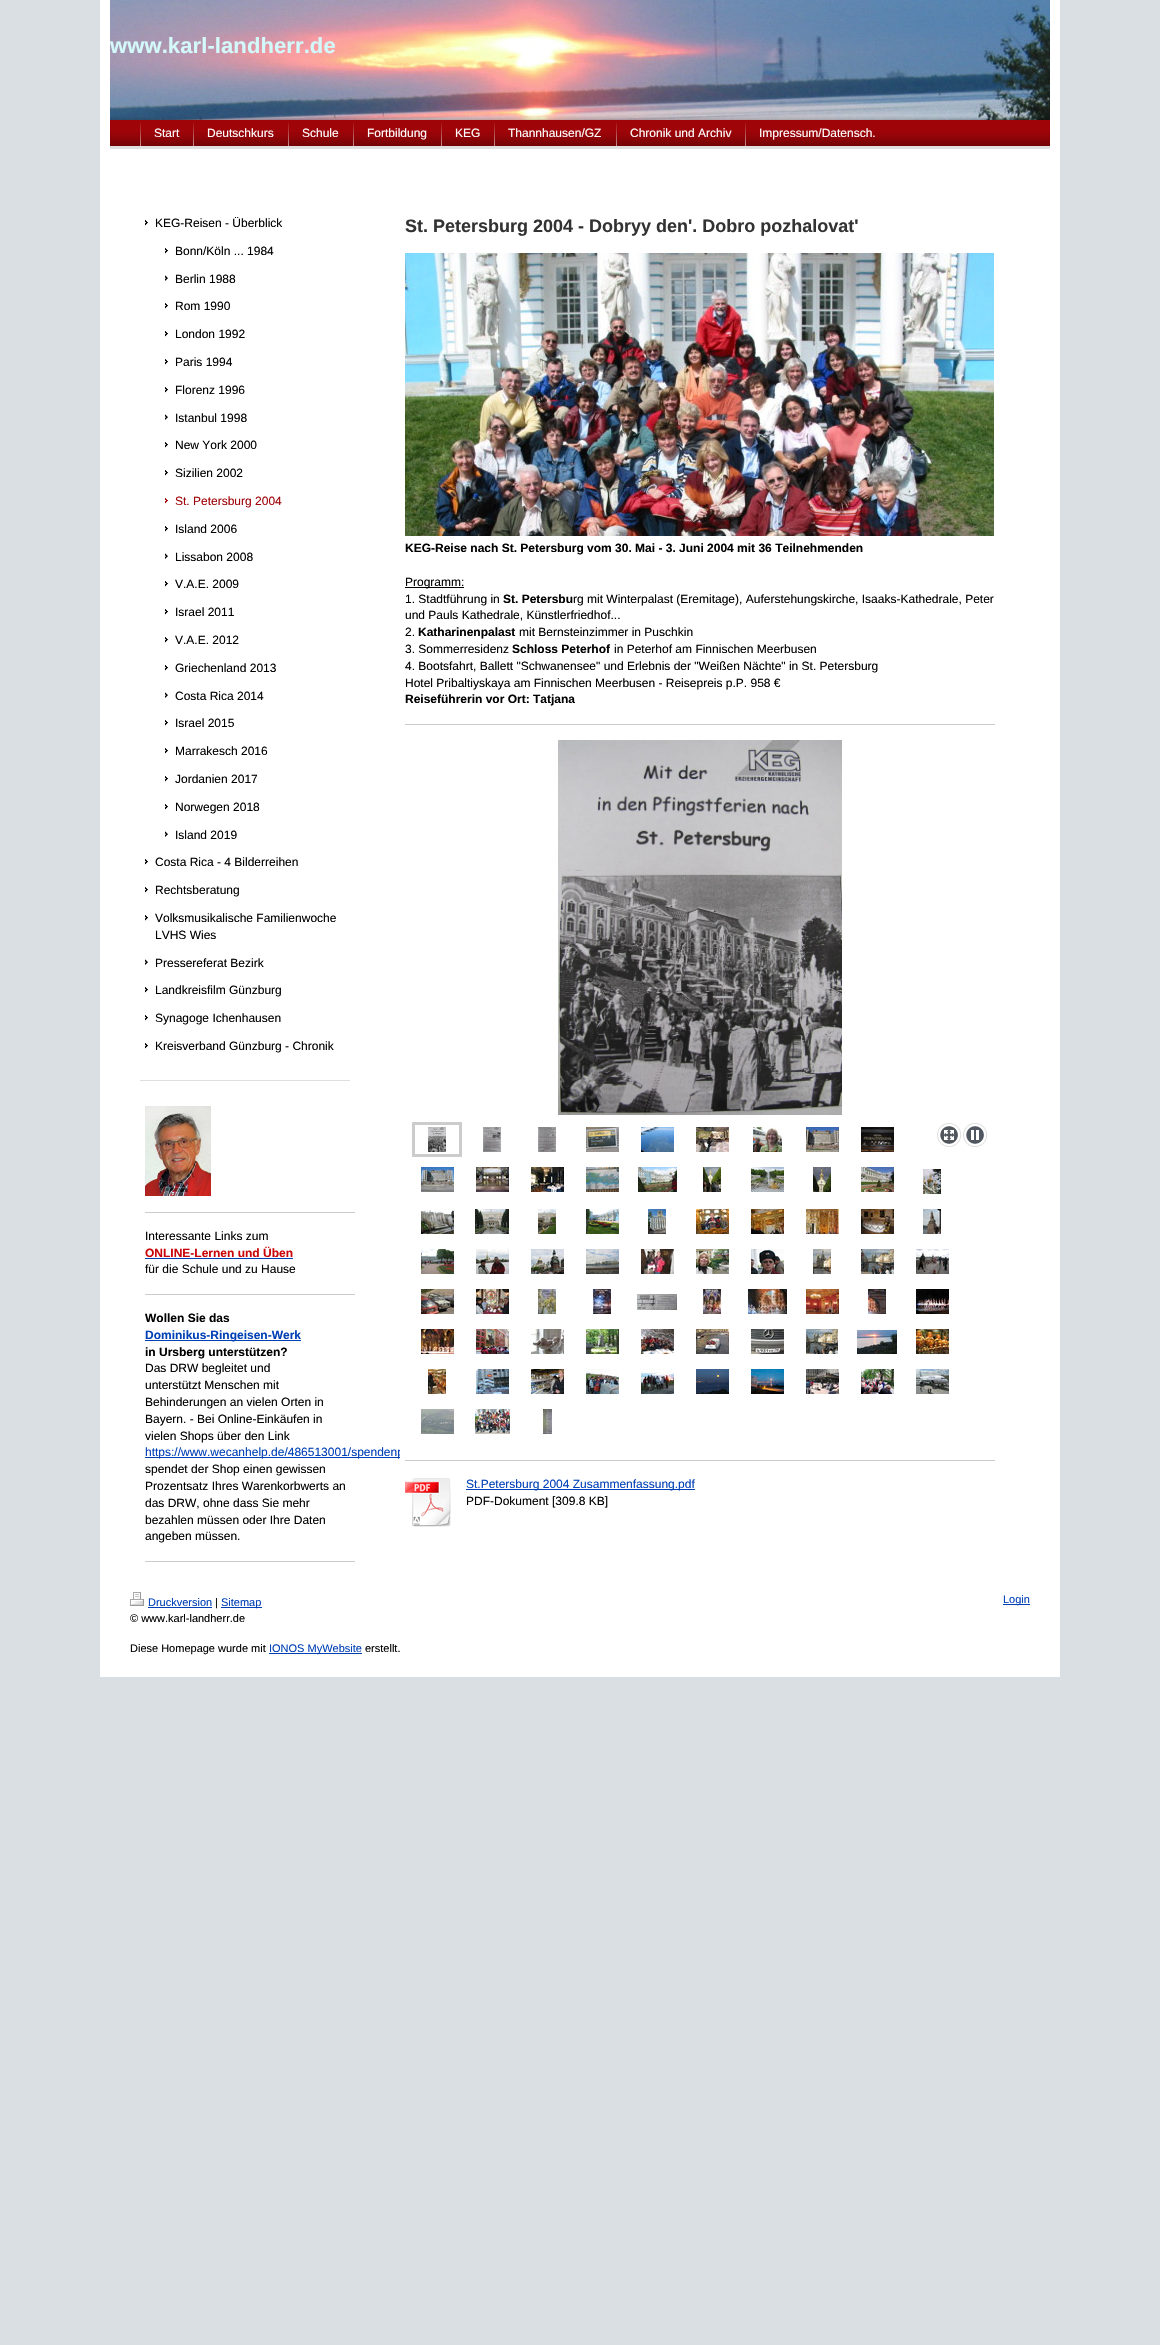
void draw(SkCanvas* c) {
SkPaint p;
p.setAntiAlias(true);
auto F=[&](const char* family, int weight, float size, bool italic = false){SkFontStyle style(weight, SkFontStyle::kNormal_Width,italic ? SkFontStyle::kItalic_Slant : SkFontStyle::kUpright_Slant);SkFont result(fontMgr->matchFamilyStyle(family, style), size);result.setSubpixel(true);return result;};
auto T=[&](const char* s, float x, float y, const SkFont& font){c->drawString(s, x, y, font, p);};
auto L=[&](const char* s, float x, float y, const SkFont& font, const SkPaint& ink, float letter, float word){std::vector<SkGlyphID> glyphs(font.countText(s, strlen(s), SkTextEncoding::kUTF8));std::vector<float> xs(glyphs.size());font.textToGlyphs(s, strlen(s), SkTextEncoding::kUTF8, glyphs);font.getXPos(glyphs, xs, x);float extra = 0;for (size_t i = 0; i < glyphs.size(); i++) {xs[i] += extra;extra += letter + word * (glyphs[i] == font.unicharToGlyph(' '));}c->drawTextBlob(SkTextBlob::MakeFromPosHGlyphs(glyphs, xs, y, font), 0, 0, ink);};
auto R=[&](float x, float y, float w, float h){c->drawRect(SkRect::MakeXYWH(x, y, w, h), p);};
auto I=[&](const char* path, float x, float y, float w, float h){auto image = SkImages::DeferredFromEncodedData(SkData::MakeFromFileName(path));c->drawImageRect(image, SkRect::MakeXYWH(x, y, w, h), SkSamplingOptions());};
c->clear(0xffdadfe3);
p.setColor(0xffffffff);
R(100,0,960,1677);
I("1.png",110,0,940,120);
auto f1 = F("Liberation Sans",700,22);
p.setColor(0xffd3f9fa);
L("www.karl-landherr.de",110,53,f1,p,.1,0);
I("2.png",110,116,940,4);
p.setColor(0xff9f0408);
R(110,120,940,26);
I("3.png",110,132,940,14);
I("4.png",140,123,1,23);
auto f2 = F("Liberation Sans",400,12);
p.setColor(0xffffffff);
T("Start",154,137,f2);
I("4.png",193,123,1,23);
T("Deutschkurs",207,137,f2);
I("4.png",288,123,1,23);
T("Schule",302,137,f2);
I("4.png",353,123,1,23);
T("Fortbildung",367,137,f2);
I("4.png",441,123,1,23);
T("KEG",455,137,f2);
I("4.png",494,123,1,23);
T("Thannhausen/GZ",508,137,f2);
I("4.png",616,123,1,23);
T("Chronik und Archiv",630,137,f2);
I("4.png",745,123,1,23);
T("Impressum/Datensch.",759,137,f2);
p.setColor(0xffe0e0e0);
R(110,146,940,3);
p.setColor(0xffdfdfdf);
R(140,1080,210,1);
p.setColor(0xff000000);
R(145,220,3,6);
I("5.png",140,209,210,28);
T("KEG-Reisen - Überblick",155,227,f2);
R(165,248,3,6);
I("6.png",160,237,190,28);
T("Bonn/Köln ... 1984",175,255,f2);
R(165,275,3,6);
I("7.png",160,265,190,27);
T("Berlin 1988",175,283,f2);
R(165,303,3,6);
I("6.png",160,292,190,28);
T("Rom 1990",175,310,f2);
R(165,331,3,6);
I("6.png",160,320,190,28);
T("London 1992",175,338,f2);
R(165,359,3,6);
I("6.png",160,348,190,28);
T("Paris 1994",175,366,f2);
R(165,387,3,6);
I("6.png",160,376,190,28);
T("Florenz 1996",175,394,f2);
R(165,414,3,6);
I("7.png",160,404,190,27);
T("Istanbul 1998",175,422,f2);
R(165,442,3,6);
I("6.png",160,431,190,28);
T("New York 2000",175,449,f2);
R(165,470,3,6);
I("6.png",160,459,190,28);
T("Sizilien 2002",175,477,f2);
p.setColor(0xff9f0408);
R(165,498,3,6);
I("8.png",160,487,190,28);
T("St. Petersburg 2004",175,505,f2);
p.setColor(0xff000000);
R(165,526,3,6);
I("6.png",160,515,190,28);
T("Island 2006",175,533,f2);
R(165,553,3,6);
I("7.png",160,543,190,27);
T("Lissabon 2008",175,561,f2);
R(165,581,3,6);
I("6.png",160,570,190,28);
T("V.A.E. 2009",175,588,f2);
R(165,609,3,6);
I("6.png",160,598,190,28);
T("Israel 2011",175,616,f2);
R(165,637,3,6);
I("6.png",160,626,190,28);
T("V.A.E. 2012",175,644,f2);
R(165,665,3,6);
I("6.png",160,654,190,28);
T("Griechenland 2013",175,672,f2);
R(165,692,3,6);
I("7.png",160,682,190,27);
T("Costa Rica 2014",175,700,f2);
R(165,720,3,6);
I("6.png",160,709,190,28);
T("Israel 2015",175,727,f2);
R(165,748,3,6);
I("6.png",160,737,190,28);
T("Marrakesch 2016",175,755,f2);
R(165,776,3,6);
I("6.png",160,765,190,28);
T("Jordanien 2017",175,783,f2);
R(165,804,3,6);
I("6.png",160,793,190,28);
T("Norwegen 2018",175,811,f2);
R(165,831,3,6);
I("7.png",160,821,190,27);
T("Island 2019",175,839,f2);
R(145,859,3,6);
I("5.png",140,848,210,28);
T("Costa Rica - 4 Bilderreihen",155,866,f2);
R(145,887,3,6);
I("5.png",140,876,210,28);
T("Rechtsberatung",155,894,f2);
R(145,915,3,6);
I("9.png",140,904,210,45);
T("Volksmusikalische Familienwoche",155,922,f2);
T("LVHS Wies",155,939,f2);
R(145,959,3,6);
I("10.png",140,949,210,27);
T("Pressereferat Bezirk",155,967,f2);
R(145,987,3,6);
I("5.png",140,976,210,28);
T("Landkreisfilm Günzburg",155,994,f2);
R(145,1015,3,6);
I("5.png",140,1004,210,28);
T("Synagoge Ichenhausen",155,1022,f2);
R(145,1043,3,6);
I("5.png",140,1032,210,28);
T("Kreisverband Günzburg - Chronik",155,1050,f2);
I("11.png",145,1106,66,90);
p.setColor(0xffcccccc);
R(145,1212,210,1);
p.setColor(0xff000000);
T("Interessante Links zum",145,1240,f2);
auto f3 = F("Liberation Sans",700,12);
p.setColor(0xffc90509);
T("ONLINE-Lernen und Üben",145,1257,f3);
p.setColor(0xff0040b6);
R(145,1258,148,1);
p.setColor(0xff000000);
T("für die Schule und zu Hause",145,1273,f2);
p.setColor(0xffcccccc);
R(145,1294,210,1);
p.setColor(0xff000000);
T("Wollen Sie das",145,1322,f3);
p.setColor(0xff0040b6);
R(145,1340,156,1);
T("Dominikus-Ringeisen-Werk",145,1339,f3);
p.setColor(0xff000000);
T("in Ursberg unterstützen?",145,1356,f3);
T("Das DRW begleitet und",145,1372,f2);
T("unterstützt Menschen mit",145,1389,f2);
T("Behinderungen an vielen Orten in",145,1406,f2);
T("Bayern. - Bei Online-Einkäufen in",145,1423,f2);
T("vielen Shops über den Link",145,1440,f2);
p.setColor(0xff0040b6);
R(145,1457,255,1);
T("https://www.wecanhelp.de/486513001/spendenp",145,1456,f2);
p.setColor(0xff000000);
T("spendet der Shop einen gewissen",145,1473,f2);
T("Prozentsatz Ihres Warenkorbwerts an",145,1490,f2);
T("das DRW, ohne dass Sie mehr",145,1507,f2);
T("bezahlen müssen oder Ihre Daten",145,1524,f2);
T("angeben müssen.",145,1540,f2);
p.setColor(0xffcccccc);
R(145,1561,210,1);
p.setColor(0xffffffff);
R(400,1449,4,8);
auto f4 = F("Liberation Sans",700,18);
p.setColor(0xff333333);
T("St. Petersburg 2004 - Dobryy den'. Dobro pozhalovat'",405,232,f4);
I("12.png",405,253,589,283);
p.setColor(0xff000000);
T("KEG-Reise nach St. Petersburg vom 30. Mai - 3. Juni 2004 mit 36 Teilnehmenden",405,552,f3);
R(405,587,59,1);
T("Programm:",405,586,f2);
T("1. Stadtführung in",405,603,f2);
T("St. Petersbu",503,603,f3);
T("rg mit Winterpalast (Eremitage), Auferstehungskirche, Isaaks-Kathedrale, Peter",573,603,f2);
T("und Pauls Kathedrale, Künstlerfriedhof...",405,619,f2);
T("2.",405,636,f2);
T("Katharinenpalast",418,636,f3);
T("mit Bernsteinzimmer in Puschkin",519,636,f2);
T("3. Sommerresidenz",405,653,f2);
T("Schloss Peterhof",512,653,f3);
T("in Peterhof am Finnischen Meerbusen",614,653,f2);
T("4. Bootsfahrt, Ballett \"Schwanensee\" und Erlebnis der \"Weißen Nächte\" in St. Petersburg",405,670,f2);
T("Hotel Pribaltiyskaya am Finnischen Meerbusen - Reisepreis p.P. 958 €",405,687,f2);
T("Reiseführerin vor Ort: Tatjana",405,703,f3);
p.setColor(0xffcccccc);
R(405,724,590,1);
I("13.png",558,740,284,375);
p.setStroke(true);
p.setStrokeWidth(3);
c->drawRect(SkRect::MakeXYWH(413.5,1123.5,47,32),p);
I("14.png",428,1127,18,25);
I("15.png",483,1127,18,25);
I("16.png",538,1127,18,25);
I("17.png",586,1127,33,25);
I("18.png",641,1127,33,25);
I("19.png",696,1127,33,25);
I("20.png",753,1127,29,25);
I("21.png",806,1127,33,25);
I("22.png",861,1127,33,25);
I("23.png",937,1123,25,24);
I("24.png",963,1123,25,24);
I("25.png",421,1167,33,25);
I("26.png",476,1167,33,25);
I("27.png",531,1167,33,25);
I("28.png",586,1167,33,25);
I("29.png",638,1167,39,25);
I("30.png",703,1167,18,25);
I("31.png",751,1167,33,25);
I("32.png",813,1167,18,25);
I("33.png",861,1167,33,25);
I("34.png",923,1169,18,25);
I("35.png",421,1209,33,25);
I("36.png",475,1209,34,25);
I("37.png",538,1209,18,25);
I("38.png",586,1209,33,25);
I("39.png",648,1209,18,25);
I("40.png",696,1209,33,25);
I("41.png",751,1209,33,25);
I("42.png",806,1209,33,25);
I("43.png",861,1209,33,25);
I("44.png",923,1209,18,25);
I("45.png",421,1249,33,25);
I("46.png",476,1249,33,25);
I("47.png",531,1249,33,25);
I("48.png",586,1249,33,25);
I("49.png",641,1249,33,25);
I("50.png",696,1249,33,25);
I("51.png",751,1249,33,25);
I("52.png",813,1249,18,25);
I("53.png",861,1249,33,25);
I("54.png",916,1249,33,25);
I("55.png",421,1289,33,25);
I("56.png",476,1289,33,25);
I("57.png",538,1289,18,25);
I("58.png",593,1289,18,25);
I("59.png",637,1294,40,16);
I("60.png",703,1289,18,25);
I("61.png",748,1289,39,25);
I("62.png",806,1289,33,25);
I("63.png",868,1289,18,25);
I("64.png",916,1289,33,25);
I("65.png",421,1329,33,25);
I("66.png",476,1329,33,25);
I("67.png",531,1329,33,25);
I("68.png",586,1329,33,25);
I("69.png",641,1329,33,25);
I("70.png",696,1329,33,25);
I("71.png",751,1329,33,25);
I("72.png",806,1329,32,25);
I("73.png",857,1330,40,24);
I("74.png",916,1329,33,25);
I("75.png",428,1369,18,25);
I("76.png",476,1369,33,25);
I("77.png",531,1369,33,25);
I("78.png",586,1369,33,25);
I("79.png",641,1369,33,25);
I("80.png",696,1369,33,25);
I("81.png",751,1369,33,25);
I("82.png",806,1369,33,25);
I("83.png",861,1369,33,25);
I("84.png",916,1369,33,25);
I("85.png",421,1409,33,25);
I("86.png",475,1409,35,25);
I("87.png",543,1409,9,25);
p.setStroke(false);
R(405,1460,590,1);
I("88.png",405,1478,46,49);
p.setColor(0xff0040b6);
R(466,1489,229,1);
T("St.Petersburg 2004 Zusammenfassung.pdf",466,1488,f2);
p.setColor(0xff000000);
T("PDF-Dokument [309.8 KB]",466,1505,f2);
I("89.png",130,1592,14,14);
auto f5 = F("Liberation Sans",400,11);
p.setColor(0xff0040b6);
T("Druckversion",148,1606,f5);
R(148,1607,64,1);
p.setColor(0xff000000);
T("|",215,1606,f5);
p.setColor(0xff0040b6);
R(221,1607,41,1);
T("Sitemap",221,1606,f5);
p.setColor(0xff000000);
T("© www.karl-landherr.de",130,1622,f5);
T("Diese Homepage wurde mit",130,1652,f5);
p.setColor(0xff0040b6);
R(269,1653,93,1);
T("IONOS MyWebsite",269,1652,f5);
p.setColor(0xff000000);
T("erstellt.",365,1652,f5);
p.setColor(0xff0040b6);
R(1003,1604,27,1);
T("Login",1003,1603,f5);
}
